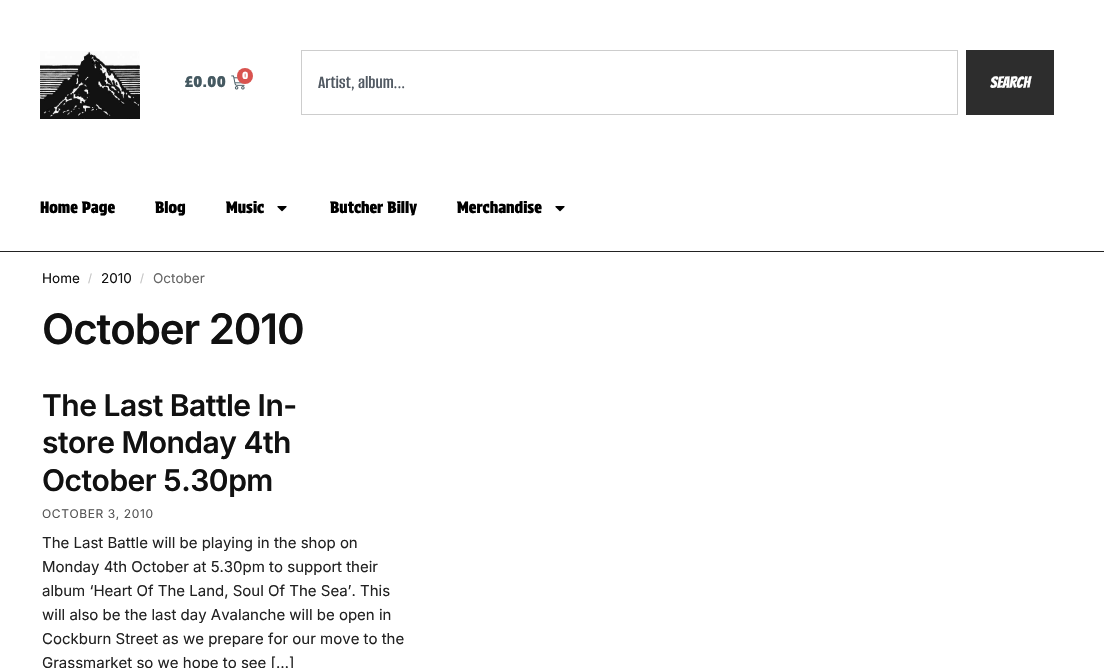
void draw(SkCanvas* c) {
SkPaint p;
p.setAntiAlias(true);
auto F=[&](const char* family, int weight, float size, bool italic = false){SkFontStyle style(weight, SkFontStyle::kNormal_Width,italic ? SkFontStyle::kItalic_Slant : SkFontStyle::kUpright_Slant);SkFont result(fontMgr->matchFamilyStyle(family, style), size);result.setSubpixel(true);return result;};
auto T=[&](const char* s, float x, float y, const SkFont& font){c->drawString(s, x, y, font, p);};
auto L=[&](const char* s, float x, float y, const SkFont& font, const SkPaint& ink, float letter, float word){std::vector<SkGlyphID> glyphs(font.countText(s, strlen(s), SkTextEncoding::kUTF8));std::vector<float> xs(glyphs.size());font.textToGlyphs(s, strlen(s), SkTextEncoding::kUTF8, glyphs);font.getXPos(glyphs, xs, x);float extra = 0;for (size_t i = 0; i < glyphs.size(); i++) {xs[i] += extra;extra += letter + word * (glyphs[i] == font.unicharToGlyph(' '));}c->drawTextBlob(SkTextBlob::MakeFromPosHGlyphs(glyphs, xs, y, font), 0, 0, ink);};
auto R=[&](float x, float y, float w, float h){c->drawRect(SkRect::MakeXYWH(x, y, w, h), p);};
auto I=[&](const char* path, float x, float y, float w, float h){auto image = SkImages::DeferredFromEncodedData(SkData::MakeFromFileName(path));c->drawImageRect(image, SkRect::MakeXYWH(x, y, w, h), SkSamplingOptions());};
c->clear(0xffffffff);
I("1.png",40,51,100,68);
auto f1 = F("Protest Strike",400,15);
p.setColor(0xff455961);
T("£0.00",185,87,f1);
I("2.png",231,75,14,15);
p.setColor(0xffd9534f);
c->drawCircle(245,76,8,p);
auto f2 = F("Protest Strike",400,10);
p.setColor(0xffffffff);
T("0",242,79,f2);
p.setStroke(true);
p.setStrokeWidth(1);
p.setColor(0xffcdcdcd);
c->drawRect(SkRect::MakeXYWH(301.5,50.5,656,64),p);
auto f3 = F("Alumni Sans",600,19);
p.setStroke(false);
p.setColor(0xff515962);
T("Artist, album...",318,88,f3);
p.setColor(0xff2d2d2d);
R(966,50,88,65);
auto f4 = F("Bangers",400,16);
p.setColor(0xffffffff);
T("Search",990,88,f4);
auto f5 = F("Protest Strike",400,16);
p.setColor(0xff000000);
T("Home Page",40,213,f5);
T("Blog",155,213,f5);
T("Music",226,213,f5);
I("3.png",277,206,10,6);
T("Butcher Billy",330,213,f5);
T("Merchandise",457,213,f5);
I("3.png",555,206,10,6);
p.setColor(0xff222222);
R(0,251,1104,1);
auto f6 = F("Inter",400,13.5);
p.setColor(0xff111111);
T("Home",42,283,f6);
auto f7 = F("Inter",400,11);
p.setColor(0xffc2c2c2);
T("/",88,282,f7);
p.setColor(0xff111111);
T("2010",101,283,f6);
p.setColor(0xffc2c2c2);
T("/",140,282,f7);
p.setColor(0xff666666);
T("October",153,283,f6);
auto f8 = F("Inter",600,42);
p.setColor(0xff111111);
L("October 2010",42,344,f8,p,-1.1,0);
auto f9 = F("Inter",600,30);
L("The Last Battle In-",42,416,f9,p,-.5,0);
L("store Monday 4th",42,453,f9,p,-.5,0);
L("October 5.30pm",42,491,f9,p,-.5,0);
auto f10 = F("Inter",400,12);
p.setColor(0xff555555);
L("OCTOBER 3, 2010",42,518,f10,p,.6,0);
auto f11 = F("Inter",400,15);
p.setColor(0xff222222);
T("The Last Battle will be playing in the shop on",42,548,f11);
T("Monday 4th October at 5.30pm to support their",42,572,f11);
T("album ‘Heart Of The Land, Soul Of The Sea’. This",42,596,f11);
T("will also be the last day Avalanche will be open in",42,620,f11);
T("Cockburn Street as we prepare for our move to the",42,644,f11);
T("Grassmarket so we hope to see […]",42,668,f11);
}
